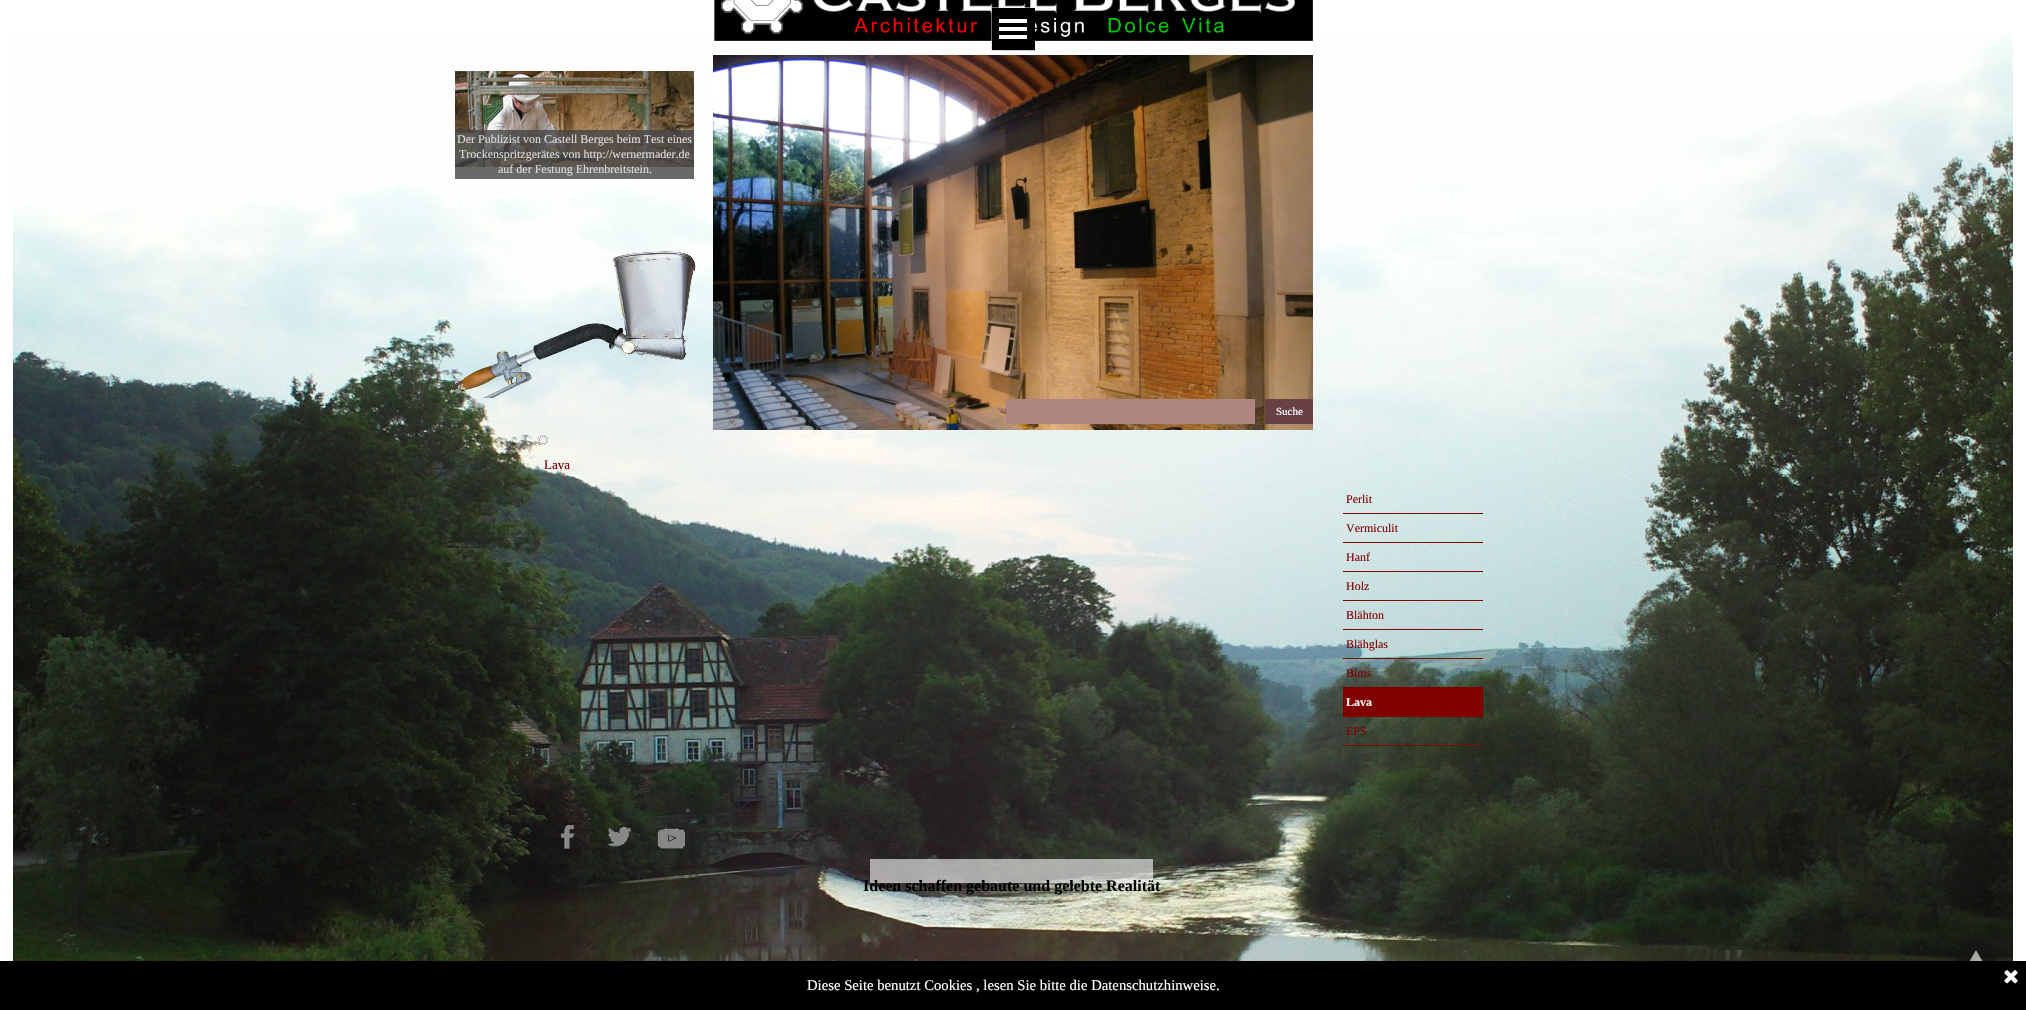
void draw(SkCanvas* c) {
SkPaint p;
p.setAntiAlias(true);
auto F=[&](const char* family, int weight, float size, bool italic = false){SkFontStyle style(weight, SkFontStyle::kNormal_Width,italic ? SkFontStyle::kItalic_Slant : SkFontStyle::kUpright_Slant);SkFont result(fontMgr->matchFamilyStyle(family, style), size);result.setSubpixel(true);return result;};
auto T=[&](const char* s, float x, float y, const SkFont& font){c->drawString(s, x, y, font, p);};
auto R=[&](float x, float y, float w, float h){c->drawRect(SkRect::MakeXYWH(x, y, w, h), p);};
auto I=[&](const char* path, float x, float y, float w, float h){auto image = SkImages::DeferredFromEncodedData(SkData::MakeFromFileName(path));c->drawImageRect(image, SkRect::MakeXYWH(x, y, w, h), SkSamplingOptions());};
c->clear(0xffffffff);
I("1.png",13,32,2000,929);
I("4.png",714,0,599,41);
I("2.png",991,7,44,44);
p.setColor(0xffffffff);
R(999,19,28,4);
R(999,27,28,4);
R(999,35,28,4);
I("3.png",713,55,600,375);
I("5.png",455,71,239,96);
p.setColor(0xcc444444);
R(455,130,239,49);
auto f1 = F("Liberation Serif",400,12);
p.setColor(0xffdddddc);
T("Der Publizist von Castell Berges beim Test eines",457,143,f1);
T("Trockenspritzgerätes von http://wernermader.de",459,158,f1);
T("auf der Festung Ehrenbreitstein.",498,173,f1);
I("6.png",449,251,248,147);
p.setColor(0xffae8581);
R(1006,399,249,25);
p.setColor(0xff684144);
R(1265,399,48,25);
auto f2 = F("Liberation Serif",400,11);
p.setColor(0xffffffff);
T("Suche",1276,415,f2);
I("7.png",538,435,10,10);
auto f3 = F("Liberation Serif",400,13);
p.setColor(0xff800000);
T("Lava",544,469,f3);
R(1343,513,140,1);
T("Perlit",1346,503,f1);
R(1343,542,140,1);
T("Vermiculit",1346,532,f1);
R(1343,571,140,1);
T("Hanf",1346,561,f1);
R(1343,600,140,1);
T("Holz",1346,590,f1);
R(1343,629,140,1);
T("Blähton",1346,619,f1);
R(1343,658,140,1);
T("Blähglas",1346,648,f1);
R(1343,687,140,30);
T("Bims",1346,677,f1);
auto f4 = F("Liberation Serif",700,12);
p.setColor(0xffffffff);
T("Lava",1346,706,f4);
p.setColor(0xff800000);
R(1343,745,140,1);
T("EPS",1346,735,f1);
I("8.png",561,825,13,24);
I("9.png",608,827,24,20);
I("10.png",657,828,28,21);
p.setColor(0x99ffffff);
R(870,859,283,24);
auto f5 = F("Liberation Serif",700,16);
p.setColor(0xff000000);
T("Ideen schaffen gebaute und gelebte Realität",863,891,f5);
I("11.png",1956,940,40,21);
R(0,961,2026,49);
I("12.png",2004,970,14,14);
auto f6 = F("Liberation Serif",400,14.7);
p.setColor(0xffffffff);
T("Diese Seite benutzt Cookies , lesen Sie bitte die Datenschutzhinweise.",807,990,f6);
}
